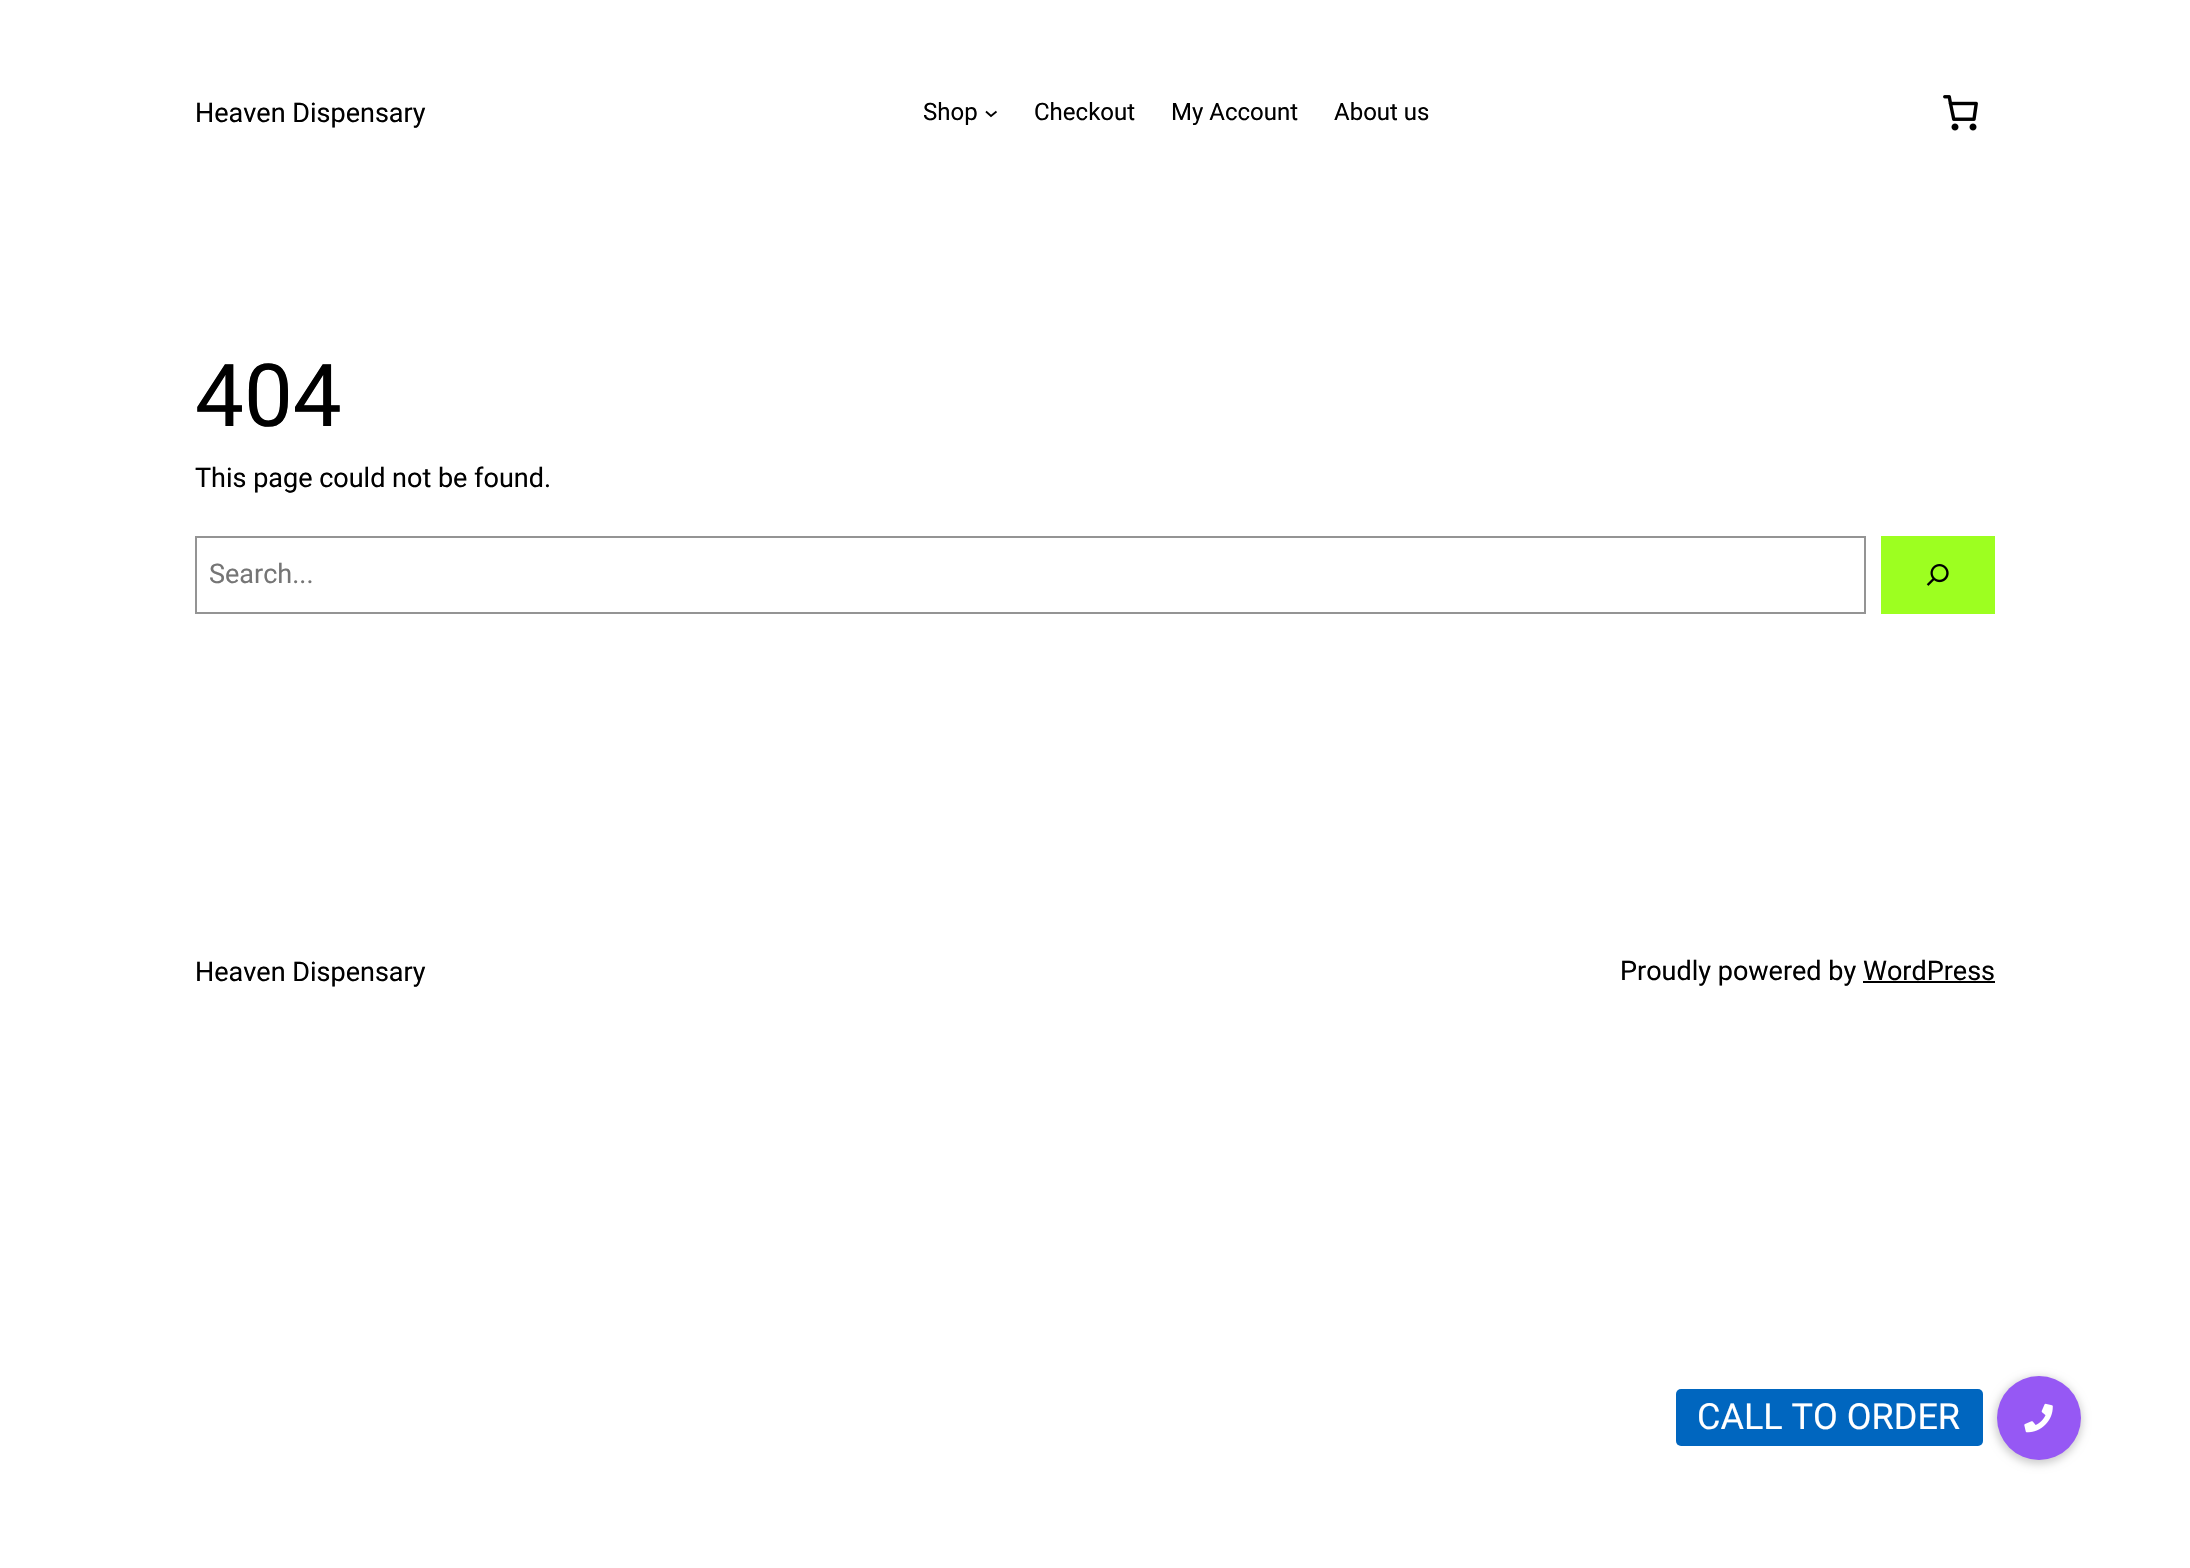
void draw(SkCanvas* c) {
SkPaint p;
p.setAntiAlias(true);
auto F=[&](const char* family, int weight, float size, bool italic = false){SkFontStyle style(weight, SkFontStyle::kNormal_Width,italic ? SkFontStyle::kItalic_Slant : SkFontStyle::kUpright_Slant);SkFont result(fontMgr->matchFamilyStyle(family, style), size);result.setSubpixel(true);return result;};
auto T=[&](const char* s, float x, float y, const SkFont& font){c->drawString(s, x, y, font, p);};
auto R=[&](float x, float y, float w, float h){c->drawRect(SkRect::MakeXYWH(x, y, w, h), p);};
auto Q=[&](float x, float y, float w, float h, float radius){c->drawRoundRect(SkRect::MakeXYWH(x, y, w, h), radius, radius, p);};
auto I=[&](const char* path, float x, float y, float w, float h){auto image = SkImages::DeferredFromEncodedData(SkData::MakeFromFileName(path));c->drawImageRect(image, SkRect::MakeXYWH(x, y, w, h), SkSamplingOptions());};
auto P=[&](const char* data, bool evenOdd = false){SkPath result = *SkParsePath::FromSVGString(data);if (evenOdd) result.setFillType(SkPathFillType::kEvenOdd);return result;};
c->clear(0xffffffff);
auto f1 = F("Roboto",400,27);
p.setColor(0xff000000);
T("Heaven Dispensary",195,122,f1);
auto f2 = F("Roboto",400,24);
T("Shop",923,120,f2);
p.setStroke(true);
p.setStrokeWidth(1.8);
c->drawPath(P("M986 111.5l5 4.5l5.5-4.5"),p);
p.setStroke(false);
T("Checkout",1034,120,f2);
T("My Account",1171,120,f2);
T("About us",1334,120,f2);
I("1.png",1943,95,35,36);
auto f3 = F("Roboto",400,87);
T("404",195,426,f3);
T("This page could not be found.",195,487,f1);
p.setStroke(true);
p.setStrokeWidth(2);
p.setColor(0xff949494);
c->drawRect(SkRect::MakeXYWH(196,537,1669,76),p);
p.setStroke(false);
p.setColor(0xff757575);
T("Search...",209,583,f1);
p.setColor(0xff9dff20);
R(1881,536,114,78);
I("2.png",1926,564,23,22);
p.setColor(0xff000000);
T("Heaven Dispensary",195,981,f1);
T("Proudly powered by WordPress",1620,980,f1);
R(1863,981,132,2);
p.setColor(0x33000000);
p.setMaskFilter(SkMaskFilter::MakeBlur(kNormal_SkBlurStyle, 4.5));
c->drawRoundRect(SkRect::MakeXYWH(1995,1377,87,87),43.5,43.5,p);
p.setMaskFilter(nullptr);
p.setColor(0xff9658f4);
c->drawCircle(2039,1418,42,p);
p.setColor(0xff0066bf);
Q(1676,1389,307,57,5);
auto f4 = F("Roboto",400,36);
p.setColor(0xffffffff);
T("CALL TO ORDER",1697,1429,f4);
I("3.png",2024,1403,29,30);
}
